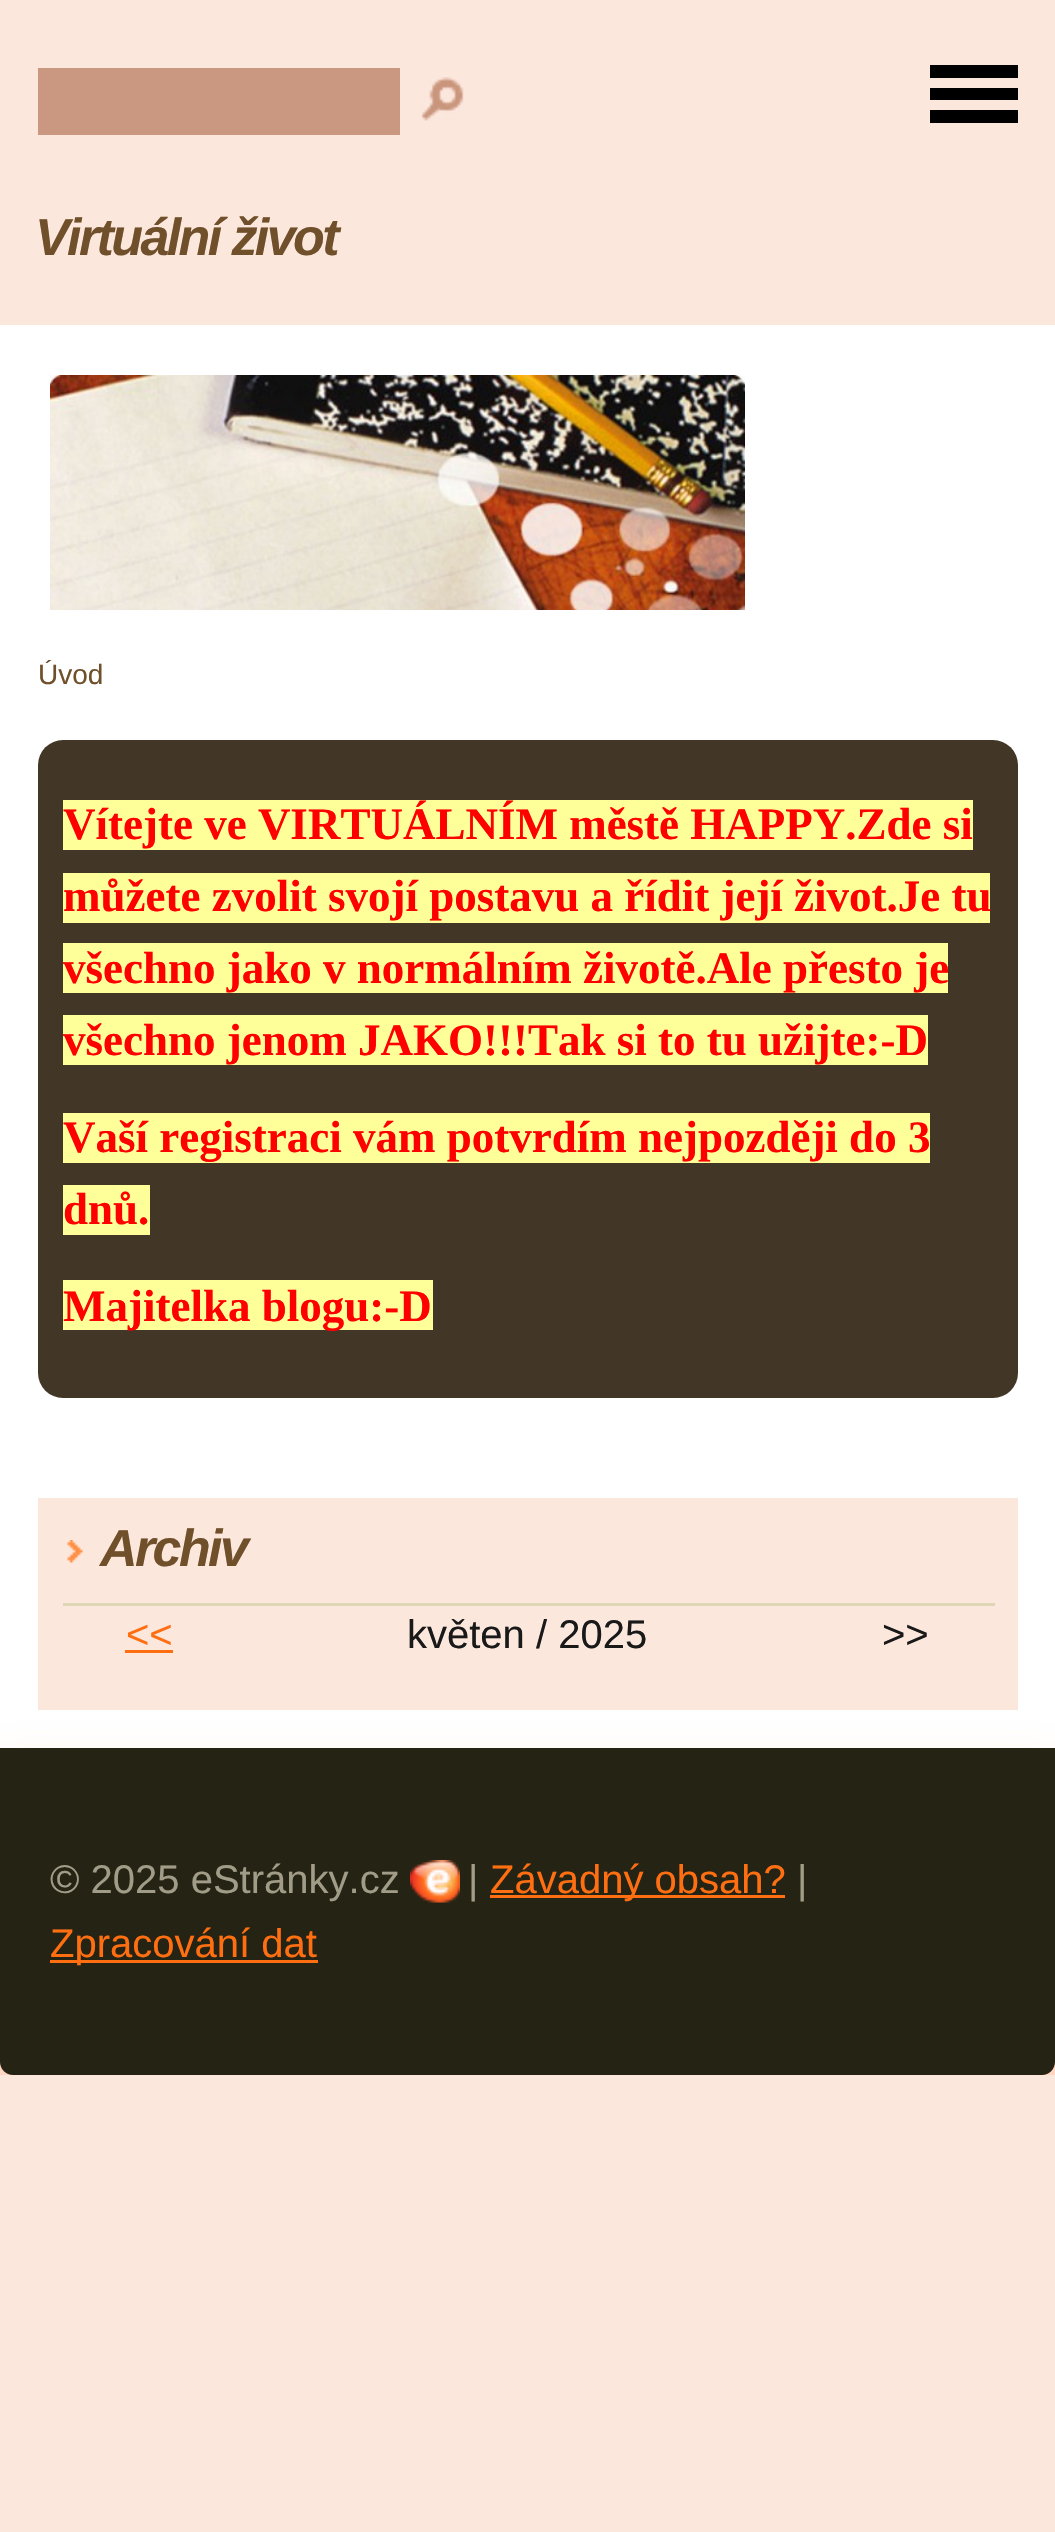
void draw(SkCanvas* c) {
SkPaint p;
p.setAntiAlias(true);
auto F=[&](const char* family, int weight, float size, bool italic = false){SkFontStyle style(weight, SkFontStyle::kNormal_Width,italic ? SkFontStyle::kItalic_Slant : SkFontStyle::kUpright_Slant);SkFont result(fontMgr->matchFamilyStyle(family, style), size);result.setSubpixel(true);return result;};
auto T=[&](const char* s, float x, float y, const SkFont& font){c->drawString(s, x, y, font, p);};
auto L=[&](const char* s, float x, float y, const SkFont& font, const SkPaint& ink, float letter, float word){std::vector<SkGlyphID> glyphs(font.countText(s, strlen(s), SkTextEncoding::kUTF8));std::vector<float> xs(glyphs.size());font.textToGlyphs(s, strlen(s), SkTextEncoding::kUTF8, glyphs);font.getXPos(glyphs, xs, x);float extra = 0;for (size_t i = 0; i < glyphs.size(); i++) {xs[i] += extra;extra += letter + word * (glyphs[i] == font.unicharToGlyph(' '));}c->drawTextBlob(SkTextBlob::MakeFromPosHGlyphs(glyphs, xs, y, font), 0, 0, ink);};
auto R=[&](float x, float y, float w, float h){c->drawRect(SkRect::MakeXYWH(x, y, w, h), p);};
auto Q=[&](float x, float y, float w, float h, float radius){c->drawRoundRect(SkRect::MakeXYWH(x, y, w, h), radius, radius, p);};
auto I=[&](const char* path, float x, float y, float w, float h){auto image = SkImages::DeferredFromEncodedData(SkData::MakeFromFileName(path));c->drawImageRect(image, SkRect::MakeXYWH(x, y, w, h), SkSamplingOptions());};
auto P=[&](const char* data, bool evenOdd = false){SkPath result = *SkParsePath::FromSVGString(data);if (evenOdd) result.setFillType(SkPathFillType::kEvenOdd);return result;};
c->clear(0xfffce7dc);
p.setColor(0xffffffff);
R(0,325,1055,1423);
p.setColor(0xff000000);
R(930,65,88,13);
R(930,88,88,12);
R(930,110,88,13);
I("1.png",50,375,695,235);
auto f1 = F("Liberation Sans",700,52,true);
p.setColor(0xff70502b);
L("Virtuální život",35,255,f1,p,-2.6,0);
c->save();
c->clipRect(SkRect::MakeXYWH(38,660,1005,55));
auto f2 = F("Liberation Sans",400,28);
T("Úvod",38,684,f2);
c->restore();
p.setColor(0xff423626);
Q(38,740,980,658,25);
p.setColor(0xffffff99);
R(63,800,910,50);
auto f3 = F("Liberation Serif",700,45);
p.setColor(0xffff0000);
T("Vítejte ve VIRTUÁLNÍM městě HAPPY.Zde si",63,839,f3);
p.setColor(0xffffff99);
R(63,873,927,50);
p.setColor(0xffff0000);
T("můžete zvolit svojí postavu a řídit její život.Je tu",63,911,f3);
p.setColor(0xffffff99);
R(63,943,885,50);
p.setColor(0xffff0000);
T("všechno jako v normálním životě.Ale přesto je",63,983,f3);
p.setColor(0xffffff99);
R(63,1015,865,50);
p.setColor(0xffff0000);
T("všechno jenom JAKO!!!Tak si to tu užijte:-D",63,1055,f3);
p.setColor(0xffffff99);
R(63,1113,867,50);
p.setColor(0xffff0000);
T("Vaší registraci vám potvrdím nejpozději do 3",63,1152,f3);
p.setColor(0xffffff99);
R(63,1185,87,50);
p.setColor(0xffff0000);
T("dnů.",63,1224,f3);
p.setColor(0xffffff99);
R(63,1280,370,50);
p.setColor(0xffff0000);
T("Majitelka blogu:-D",63,1321,f3);
p.setColor(0xffca9780);
R(38,68,362,67);
I("2.png",421,77,43,44);
p.setColor(0xfffce7dc);
R(38,1498,980,212);
I("3.png",67,1540,16,23);
p.setColor(0xff70502b);
L("Archiv",100,1566,f1,p,-2.6,0);
auto f4 = F("Liberation Sans",400,40);
p.setColor(0xffff6f12);
T("<<",126,1648,f4);
R(125,1650,48,3);
p.setColor(0xff191919);
T("květen / 2025",407,1648,f4);
p.setColor(0xffded7b6);
R(63,1603,932,3);
p.setColor(0xff191919);
T(">>",882,1648,f4);
c->save();
c->clipRect(SkRect::MakeXYWH(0,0,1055,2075));
p.setColor(0xffffd2b9);
p.setMaskFilter(SkMaskFilter::MakeBlur(kNormal_SkBlurStyle, 25));
c->drawRoundRect(SkRect::MakeXYWH(-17,1780,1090,363),30,30,p);
p.setMaskFilter(nullptr);
c->restore();
p.setColor(0xff252314);
c->drawPath(P("M0 1748h1055v314c0 7-6 13-13 13h-1029c-7 0-13-6-13-13z"),p);
p.setColor(0xffa09c87);
T("© 2025 eStránky.cz",50,1893,f4);
I("4.png",410,1860,50,43);
T("|",468,1893,f4);
p.setColor(0xffff6f12);
R(490,1895,295,3);
T("Závadný obsah?",490,1893,f4);
p.setColor(0xffa09c87);
T("|",797,1893,f4);
p.setColor(0xffff6f12);
R(50,1960,268,3);
T("Zpracování dat",50,1957,f4);
}
